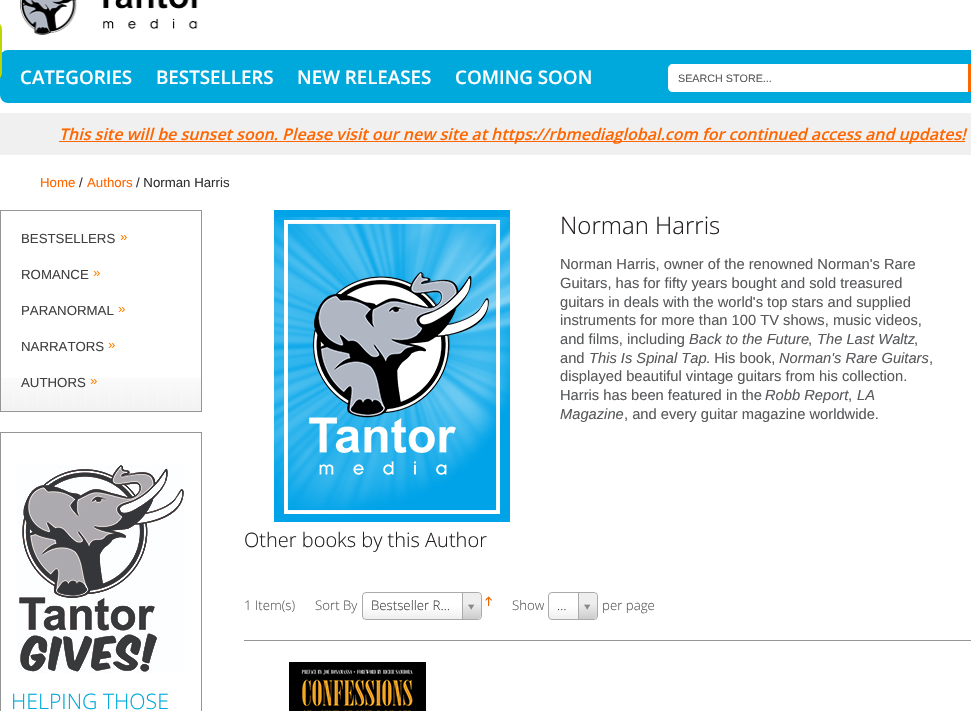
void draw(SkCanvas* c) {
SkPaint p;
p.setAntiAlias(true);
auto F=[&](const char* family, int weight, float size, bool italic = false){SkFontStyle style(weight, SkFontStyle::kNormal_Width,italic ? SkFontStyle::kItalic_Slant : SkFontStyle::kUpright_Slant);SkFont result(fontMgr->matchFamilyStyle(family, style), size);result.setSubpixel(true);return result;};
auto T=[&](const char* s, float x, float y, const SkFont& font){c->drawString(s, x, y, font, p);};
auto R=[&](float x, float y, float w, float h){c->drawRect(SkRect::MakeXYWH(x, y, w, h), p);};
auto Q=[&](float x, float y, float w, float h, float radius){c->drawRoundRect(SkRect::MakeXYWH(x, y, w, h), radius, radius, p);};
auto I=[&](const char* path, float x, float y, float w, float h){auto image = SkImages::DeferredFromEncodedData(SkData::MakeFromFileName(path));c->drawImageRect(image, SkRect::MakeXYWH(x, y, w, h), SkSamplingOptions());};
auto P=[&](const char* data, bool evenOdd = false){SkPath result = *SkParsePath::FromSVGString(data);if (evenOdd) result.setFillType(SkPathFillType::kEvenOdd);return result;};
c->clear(0xffffffff);
p.setColor(0xff00a9db);
Q(0,50,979,53,8);
p.setColor(0xffbed600);
c->drawPath(P("M-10 20h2c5.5 0 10 4.5 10 10v42c0 5.5-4.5 10-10 10h-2z"),p);
I("1.png",20,0,178,35);
auto f1 = F("Open Sans",600,18.75);
p.setColor(0xffffffff);
T("CATEGORIES",20,84,f1);
T("BESTSELLERS",156,84,f1);
T("NEW RELEASES",297,84,f1);
T("COMING SOON",455,84,f1);
c->drawPath(P("M673 64h295v28h-295c-3 0-5-2-5-5v-18c0-3 2-5 5-5z"),p);
auto f2 = F("Liberation Sans",400,10.75);
p.setColor(0xff58595b);
T("SEARCH STORE...",678,82,f2);
p.setColor(0xffff6600);
R(968,64,3,28);
p.setColor(0xfff0f0f0);
R(0,113,971,42);
p.setColor(0xffff6600);
R(59,141,906,1);
auto f3 = F("Open Sans",600,16,true);
T("This site will be sunset soon. Please visit our new site at https://rbmediaglobal.com for continued access and updates!",59,140,f3);
auto f4 = F("Liberation Sans",400,13.25);
T("Home",40,187,f4);
p.setColor(0xff323232);
T("/",79,187,f4);
p.setColor(0xffff6600);
T("Authors",87,187,f4);
p.setColor(0xff323232);
T("/ Norman Harris",136,187,f4);
I("2.png",1,378,200,33);
p.setStroke(true);
p.setStrokeWidth(1);
p.setColor(0xff939597);
c->drawRect(SkRect::MakeXYWH(.5,210.5,201,201),p);
p.setStroke(false);
p.setColor(0xff404041);
T("BESTSELLERS",21,243,f4);
p.setColor(0xffff8100);
T("»",120,241,f4);
p.setColor(0xff404041);
T("ROMANCE",21,279,f4);
p.setColor(0xffff8100);
T("»",93,277,f4);
p.setColor(0xff404041);
T("PARANORMAL",21,315,f4);
p.setColor(0xffff8100);
T("»",118,313,f4);
p.setColor(0xff404041);
T("NARRATORS",21,351,f4);
p.setColor(0xffff8100);
T("»",108,349,f4);
p.setColor(0xff404041);
T("AUTHORS",21,387,f4);
p.setColor(0xffff8100);
T("»",90,385,f4);
p.setStroke(true);
p.setColor(0xff939597);
c->drawRect(SkRect::MakeXYWH(.5,432.5,201,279),p);
I("3.png",17,465,168,208);
auto f5 = F("Open Sans",300,21.25);
p.setStroke(false);
p.setColor(0xff00a9db);
T("HELPING THOSE",11,709,f5);
I("4.png",274,210,236,312);
auto f6 = F("Open Sans",300,24);
p.setColor(0xff231f20);
T("Norman Harris",560,234,f6);
auto f7 = F("Liberation Sans",400,14.7);
p.setColor(0xff58595b);
T("Norman Harris, owner of the renowned Norman's Rare",560,269,f7);
T("Guitars, has for fifty years bought and sold treasured",560,288,f7);
T("guitars in deals with the world's top stars and supplied",560,307,f7);
T("instruments for more than 100 TV shows, music videos,",560,325,f7);
T("and films, including",560,344,f7);
auto f8 = F("Liberation Sans",400,14.7,true);
T("Back to the Future",689,344,f8);
T(",",808,344,f7);
T("The Last Waltz",817,344,f8);
T(",",914,344,f7);
T("and",560,363,f7);
T("This Is Spinal Tap",589,363,f8);
T(". His book,",706,363,f7);
T("Norman's Rare Guitars",779,363,f8);
T(",",929,363,f7);
T("displayed beautiful vintage guitars from his collection.",560,381,f7);
T("Harris has been featured in the",560,400,f7);
T("Robb Report",765,400,f8);
T(",",848,400,f7);
T("LA",857,400,f8);
T("Magazine",560,419,f8);
T(", and every guitar magazine worldwide.",624,419,f7);
auto f9 = F("Open Sans",300,20);
p.setColor(0xff231f20);
T("Other books by this Author",244,547,f9);
auto f10 = F("Open Sans",300,13.25);
p.setColor(0xff58595b);
T("1 Item(s)",244,610,f10);
T("Sort By",315,610,f10);
{
const SkColor colors[] = {0xffeeeeee,0xffffffff};
const float stops[] = {0,.5};
const SkPoint ends[] = {{363,619}, {363,593}};
p.setShader(SkGradientShader::MakeLinear(ends, colors, stops, 2, SkTileMode::kClamp));
p.setAlpha(255);
}
Q(363,593,118,26,3);
p.setStroke(true);
p.setShader(nullptr);
p.setColor(0xffaaaaaa);
c->drawRoundRect(SkRect::MakeXYWH(362.5,592.5,119,27),3.5,3.5,p);
p.setStroke(false);
p.setColor(0xff404041);
T("Bestseller R…",371,610,f10);
c->save();
c->clipPath(P("M366 593h112c1.5 0 3 1.5 3 3v20c0 1.5-1.5 3-3 3h-112c-1.5 0-3-1.5-3-3v-20c0-1.5 1.5-3 3-3z"),true);
{
const SkColor colors[] = {0xffcccccc,0xffeeeeee};
const float stops[] = {0,.6};
const SkPoint ends[] = {{463,619}, {463,593}};
p.setShader(SkGradientShader::MakeLinear(ends, colors, stops, 2, SkTileMode::kClamp));
p.setAlpha(255);
}
c->drawPath(P("M462 593h15c2 0 4 2 4 4v18c0 2-2 4-4 4h-15z"),p);
c->restore();
p.setShader(nullptr);
p.setColor(0xffaaaaaa);
R(462,593,1,26);
I("5.png",468,604,7,6);
I("6.png",485,596,7,10);
p.setColor(0xff58595b);
T("Show",512,610,f10);
{
const SkColor colors[] = {0xffeeeeee,0xffffffff};
const float stops[] = {0,.5};
const SkPoint ends[] = {{549,619}, {549,593}};
p.setShader(SkGradientShader::MakeLinear(ends, colors, stops, 2, SkTileMode::kClamp));
p.setAlpha(255);
}
Q(549,593,48,26,3);
p.setStroke(true);
p.setShader(nullptr);
p.setColor(0xffaaaaaa);
c->drawRoundRect(SkRect::MakeXYWH(548.5,592.5,49,27),3.5,3.5,p);
p.setStroke(false);
p.setColor(0xff404041);
T("…",557,610,f10);
c->save();
c->clipPath(P("M552 593h42c1.5 0 3 1.5 3 3v20c0 1.5-1.5 3-3 3h-42c-1.5 0-3-1.5-3-3v-20c0-1.5 1.5-3 3-3z"),true);
{
const SkColor colors[] = {0xffcccccc,0xffeeeeee};
const float stops[] = {0,.6};
const SkPoint ends[] = {{579,619}, {579,593}};
p.setShader(SkGradientShader::MakeLinear(ends, colors, stops, 2, SkTileMode::kClamp));
p.setAlpha(255);
}
c->drawPath(P("M578 593h15c2 0 4 2 4 4v18c0 2-2 4-4 4h-15z"),p);
c->restore();
p.setShader(nullptr);
p.setColor(0xffaaaaaa);
R(578,593,1,26);
I("5.png",584,604,7,6);
p.setColor(0xff58595b);
T("per page",602,610,f10);
p.setColor(0xff939597);
R(244,640,727,1);
I("7.png",289,662,137,49);
}
